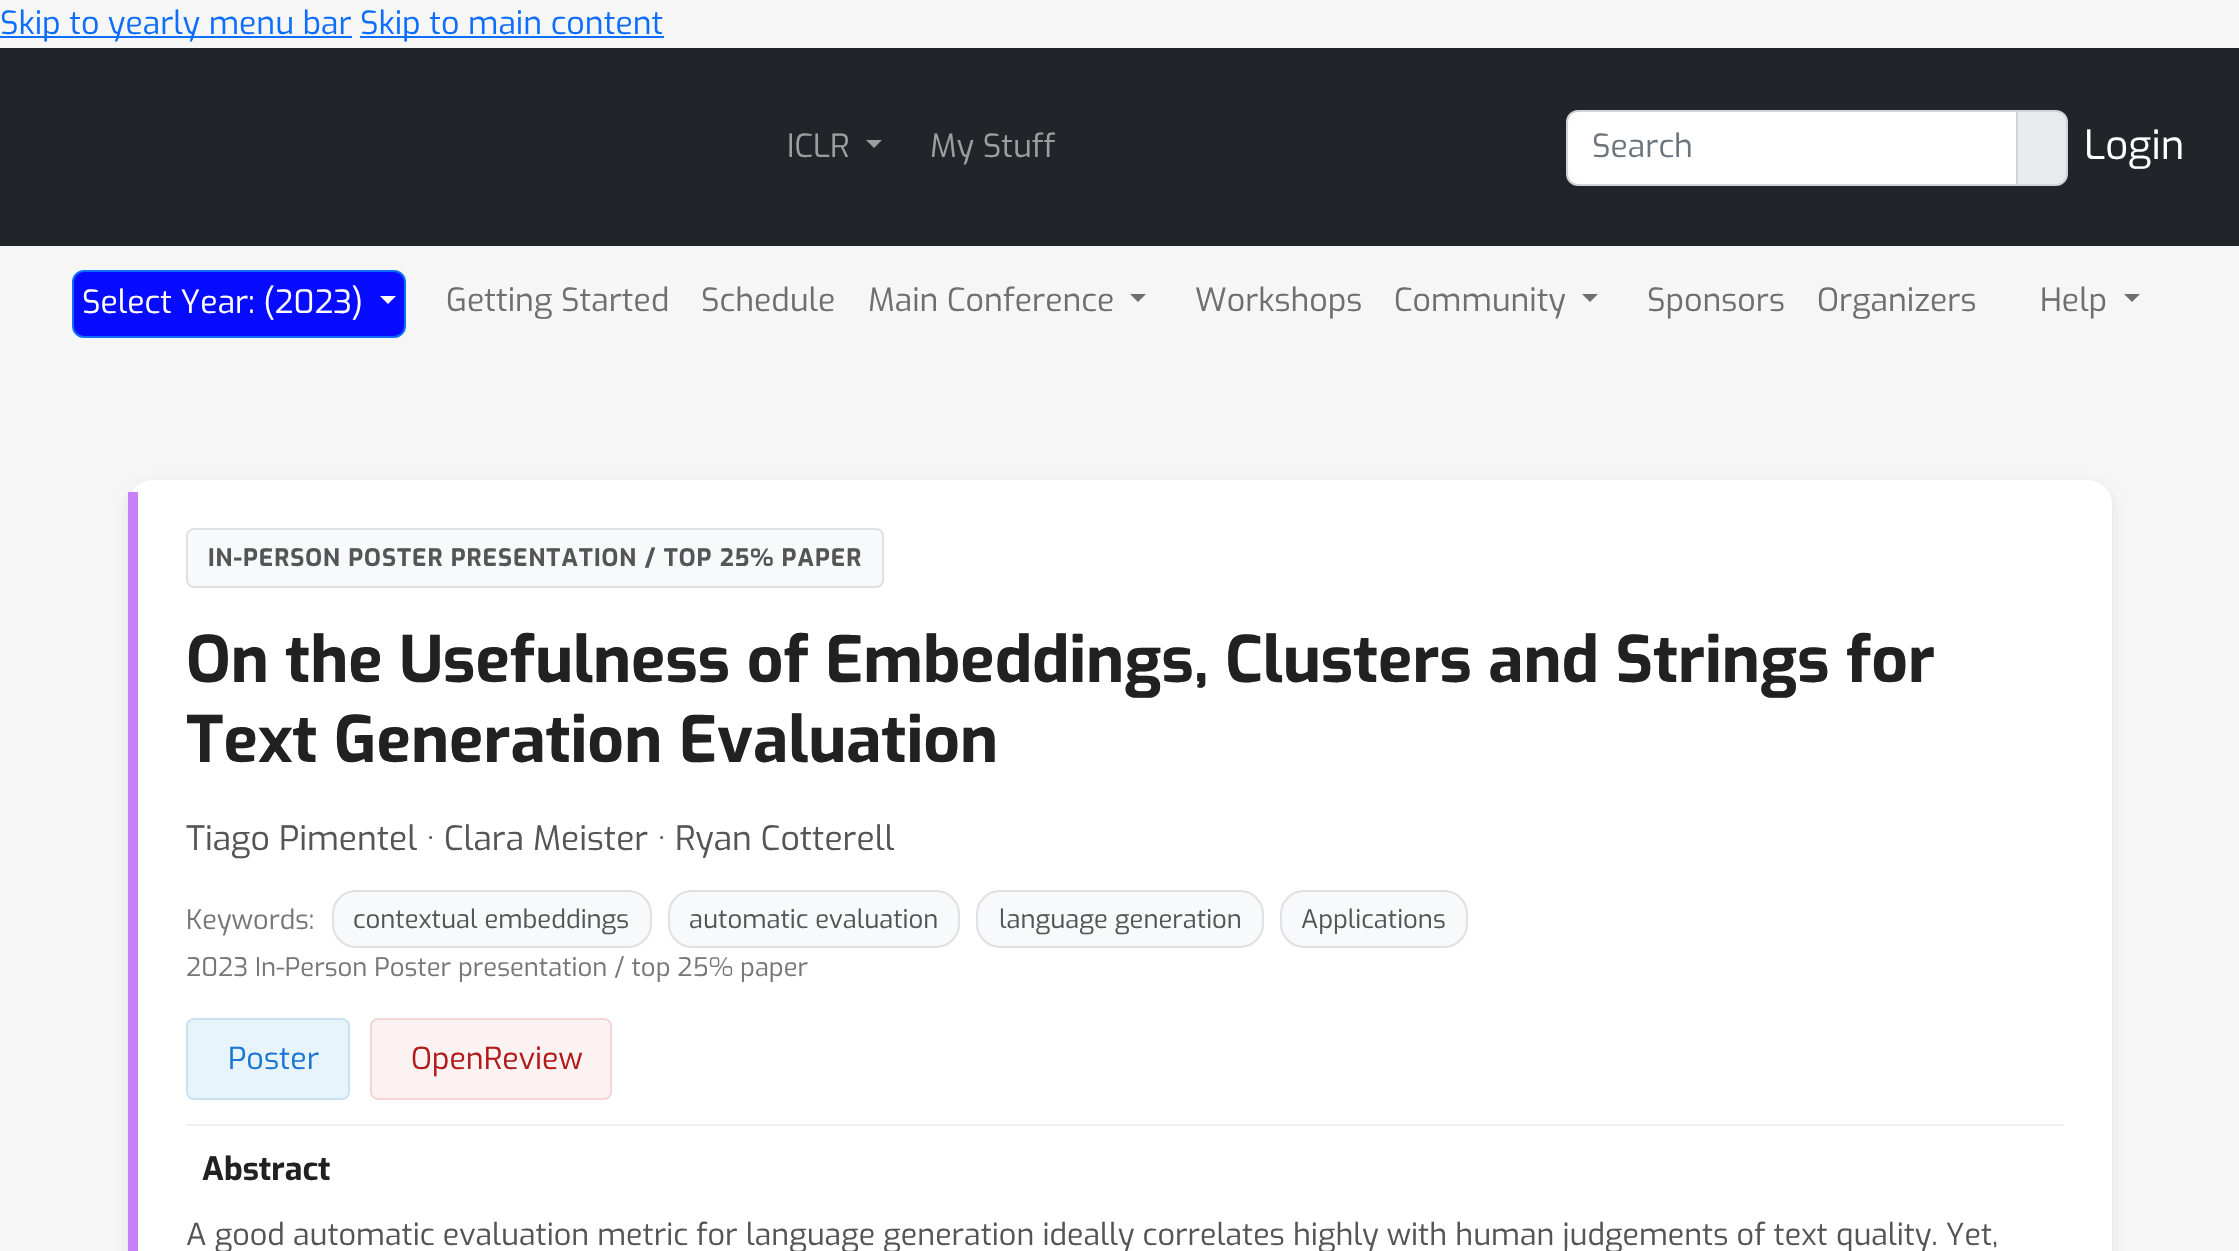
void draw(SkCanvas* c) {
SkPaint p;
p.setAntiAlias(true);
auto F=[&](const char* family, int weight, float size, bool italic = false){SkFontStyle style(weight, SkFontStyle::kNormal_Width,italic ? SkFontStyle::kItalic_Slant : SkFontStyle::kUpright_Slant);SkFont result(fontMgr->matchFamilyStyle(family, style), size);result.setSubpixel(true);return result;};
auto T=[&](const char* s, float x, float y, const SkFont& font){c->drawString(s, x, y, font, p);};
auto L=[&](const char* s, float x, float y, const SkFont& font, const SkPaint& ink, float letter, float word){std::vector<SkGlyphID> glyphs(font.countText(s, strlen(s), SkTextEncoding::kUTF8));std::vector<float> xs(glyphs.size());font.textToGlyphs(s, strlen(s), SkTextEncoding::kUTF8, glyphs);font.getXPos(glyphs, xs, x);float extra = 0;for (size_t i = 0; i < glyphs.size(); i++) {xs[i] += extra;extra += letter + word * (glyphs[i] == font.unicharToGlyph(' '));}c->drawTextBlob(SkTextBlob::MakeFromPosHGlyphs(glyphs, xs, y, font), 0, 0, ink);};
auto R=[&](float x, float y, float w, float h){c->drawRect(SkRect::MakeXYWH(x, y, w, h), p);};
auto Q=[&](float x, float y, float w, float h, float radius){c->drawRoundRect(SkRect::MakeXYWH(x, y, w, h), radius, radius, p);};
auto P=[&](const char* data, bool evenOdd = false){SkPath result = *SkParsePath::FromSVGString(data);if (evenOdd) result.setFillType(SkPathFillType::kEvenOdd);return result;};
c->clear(0xfff6f6f6);
p.setColor(0xff0d6efd);
R(0,36,352,2);
auto f1 = F("Exo",400,32);
T("Skip to yearly menu bar",0,34,f1);
R(360,36,304,2);
T("Skip to main content",360,34,f1);
p.setColor(0xff212529);
R(0,48,2239,198);
p.setColor(0xff9b9d9f);
T("ICLR",787,157,f1);
c->drawPath(P("M866 140h16l-8 8z"),p);
T("My Stuff",930,157,f1);
p.setColor(0xffe9ecef);
c->drawPath(P("M2017 111h39c6 0 11 5 11 11v52c0 6-5 11-11 11h-39z"),p);
p.setStroke(true);
p.setStrokeWidth(2);
p.setColor(0xffced4da);
c->drawPath(P("M2017 111h39c6 0 11 5 11 11v52c0 6-5 11-11 11h-39z"),p);
p.setStroke(false);
p.setColor(0xffffffff);
c->drawPath(P("M1578 111h439v74h-439c-6 0-11-5-11-11v-52c0-6 5-11 11-11z"),p);
p.setStroke(true);
p.setColor(0xffced4da);
c->drawPath(P("M1578 111h439v74h-439c-6 0-11-5-11-11v-52c0-6 5-11 11-11z"),p);
p.setStroke(false);
p.setColor(0xff6c757d);
T("Search",1592,157,f1);
auto f2 = F("Exo",400,40);
p.setColor(0xffffffff);
T("Login",2084,159,f2);
p.setColor(0xff070bff);
c->drawRoundRect(SkRect::MakeXYWH(73,271,332,66),11,11,p);
p.setStroke(true);
p.setColor(0xff0d6efd);
c->drawRoundRect(SkRect::MakeXYWH(73,271,332,66),11,11,p);
p.setStroke(false);
p.setColor(0xffffffff);
T("Select Year: (2023)",82,313,f1);
c->drawPath(P("M380 296h16l-8 8z"),p);
p.setColor(0xff6f6f6f);
T("Getting Started",446,311,f1);
T("Schedule",701,311,f1);
T("Main Conference",868,311,f1);
c->drawPath(P("M1130 294h16l-8 8z"),p);
T("Workshops",1195,311,f1);
T("Community",1394,311,f1);
c->drawPath(P("M1582 294h16l-8 8z"),p);
T("Sponsors",1647,311,f1);
T("Organizers",1817,311,f1);
T("Help",2040,311,f1);
c->drawPath(P("M2124 294h16l-8 8z"),p);
p.setColor(0x14000000);
p.setMaskFilter(SkMaskFilter::MakeBlur(kNormal_SkBlurStyle, 6));
c->drawRoundRect(SkRect::MakeXYWH(128,484,1984,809),24,24,p);
p.setMaskFilter(nullptr);
p.setColor(0xffffffff);
Q(128,480,1984,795,24);
p.setColor(0xffc580fa);
R(128,492,10,759);
p.setColor(0xfff8f9fa);
c->drawRoundRect(SkRect::MakeXYWH(187,529,696,58),7,7,p);
p.setStroke(true);
p.setColor(0xffe0e0e0);
c->drawRoundRect(SkRect::MakeXYWH(187,529,696,58),7,7,p);
auto f3 = F("Exo",700,24);
p.setStroke(false);
p.setColor(0xff555555);
L("IN-PERSON POSTER PRESENTATION / TOP 25% PAPER",208,566,f3,p,1,0);
auto f4 = F("Exo",700,64);
p.setColor(0xff212121);
T("On the Usefulness of Embeddings, Clusters and Strings for",186,682,f4);
T("Text Generation Evaluation",186,762,f4);
auto f5 = F("Exo",400,33.6);
p.setColor(0xff555555);
T("Tiago Pimentel · Clara Meister · Ryan Cotterell",186,850,f5);
auto f6 = F("Exo",400,27);
p.setColor(0xff777777);
T("Keywords:",186,929,f6);
p.setColor(0xfff8f9fa);
c->drawRoundRect(SkRect::MakeXYWH(333,891,318,56),23,23,p);
p.setStroke(true);
p.setColor(0xffe0e0e0);
c->drawRoundRect(SkRect::MakeXYWH(333,891,318,56),23,23,p);
auto f7 = F("Exo",400,25.6);
p.setStroke(false);
p.setColor(0xff555555);
T("contextual embeddings",353,928,f7);
p.setColor(0xfff8f9fa);
c->drawRoundRect(SkRect::MakeXYWH(669,891,290,56),23,23,p);
p.setStroke(true);
p.setColor(0xffe0e0e0);
c->drawRoundRect(SkRect::MakeXYWH(669,891,290,56),23,23,p);
p.setStroke(false);
p.setColor(0xff555555);
T("automatic evaluation",689,928,f7);
p.setColor(0xfff8f9fa);
c->drawRoundRect(SkRect::MakeXYWH(977,891,286,56),23,23,p);
p.setStroke(true);
p.setColor(0xffe0e0e0);
c->drawRoundRect(SkRect::MakeXYWH(977,891,286,56),23,23,p);
p.setStroke(false);
p.setColor(0xff555555);
T("language generation",999,928,f7);
p.setColor(0xfff8f9fa);
c->drawRoundRect(SkRect::MakeXYWH(1281,891,186,56),23,23,p);
p.setStroke(true);
p.setColor(0xffe0e0e0);
c->drawRoundRect(SkRect::MakeXYWH(1281,891,186,56),23,23,p);
p.setStroke(false);
p.setColor(0xff555555);
T("Applications",1301,928,f7);
p.setColor(0xff777777);
T("2023 In-Person Poster presentation / top 25% paper",186,976,f7);
p.setColor(0xffe8f4fc);
c->drawRoundRect(SkRect::MakeXYWH(187,1019,162,80),7,7,p);
p.setStroke(true);
p.setColor(0xffc8e1f3);
c->drawRoundRect(SkRect::MakeXYWH(187,1019,162,80),7,7,p);
auto f8 = F("Exo",400,30.4);
p.setStroke(false);
p.setColor(0xff1976d2);
T("Poster",228,1069,f8);
p.setColor(0xfffdf2f2);
c->drawRoundRect(SkRect::MakeXYWH(371,1019,240,80),7,7,p);
p.setStroke(true);
p.setColor(0xfff5d6d6);
c->drawRoundRect(SkRect::MakeXYWH(371,1019,240,80),7,7,p);
p.setStroke(false);
p.setColor(0xffb31b1b);
T("OpenReview",411,1069,f8);
p.setColor(0xfff0f0f0);
R(186,1124,1878,2);
auto f9 = F("Exo",700,32);
p.setColor(0xff212121);
T("Abstract",202,1180,f9);
p.setColor(0xff555555);
T("A good automatic evaluation metric for language generation ideally correlates highly with human judgements of text quality. Yet,",186,1245,f8);
}
